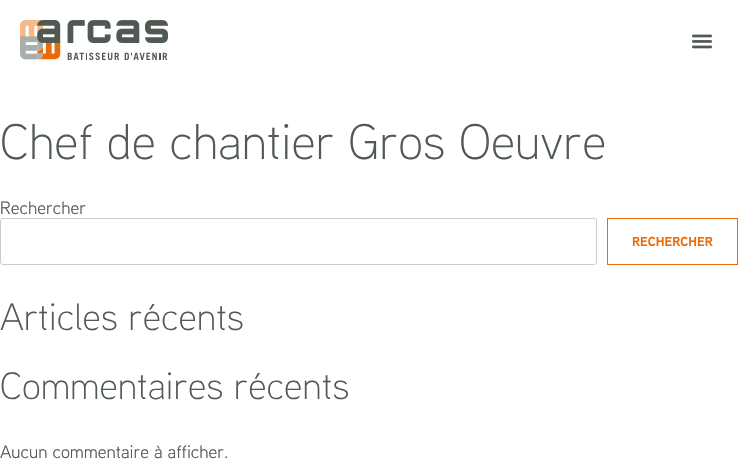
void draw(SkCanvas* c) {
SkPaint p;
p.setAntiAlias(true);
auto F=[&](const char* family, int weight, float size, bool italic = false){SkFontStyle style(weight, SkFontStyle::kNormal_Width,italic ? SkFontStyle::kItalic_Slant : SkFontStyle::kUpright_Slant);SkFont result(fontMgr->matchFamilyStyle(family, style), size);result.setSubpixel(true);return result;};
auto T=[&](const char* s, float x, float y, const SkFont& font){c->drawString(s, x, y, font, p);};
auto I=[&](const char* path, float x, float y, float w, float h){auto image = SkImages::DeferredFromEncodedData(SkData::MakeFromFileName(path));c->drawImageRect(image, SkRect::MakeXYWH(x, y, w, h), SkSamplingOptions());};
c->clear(0xffffffff);
I("1.png",20,20,148,41);
I("2.png",691,34,22,15);
auto f1 = F("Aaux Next",300,50);
p.setColor(0xff515a52);
T("Chef de chantier Gros Oeuvre",0,159,f1);
auto f2 = F("Aaux Next",400,18);
T("Rechercher",0,214,f2);
p.setStroke(true);
p.setStrokeWidth(1);
p.setColor(0xffcccccc);
c->drawRoundRect(SkRect::MakeXYWH(.5,218.5,596,46),2.5,2.5,p);
p.setColor(0xffec6a06);
c->drawRect(SkRect::MakeXYWH(607.5,218.5,130,46),p);
auto f3 = F("Aaux Next",700,13);
p.setStroke(false);
T("RECHERCHER",632,246,f3);
auto f4 = F("Aaux Next",300,38);
p.setColor(0xff515a52);
T("Articles récents",0,330,f4);
T("Commentaires récents",0,399,f4);
T("Aucun commentaire à afficher.",0,458,f2);
}
